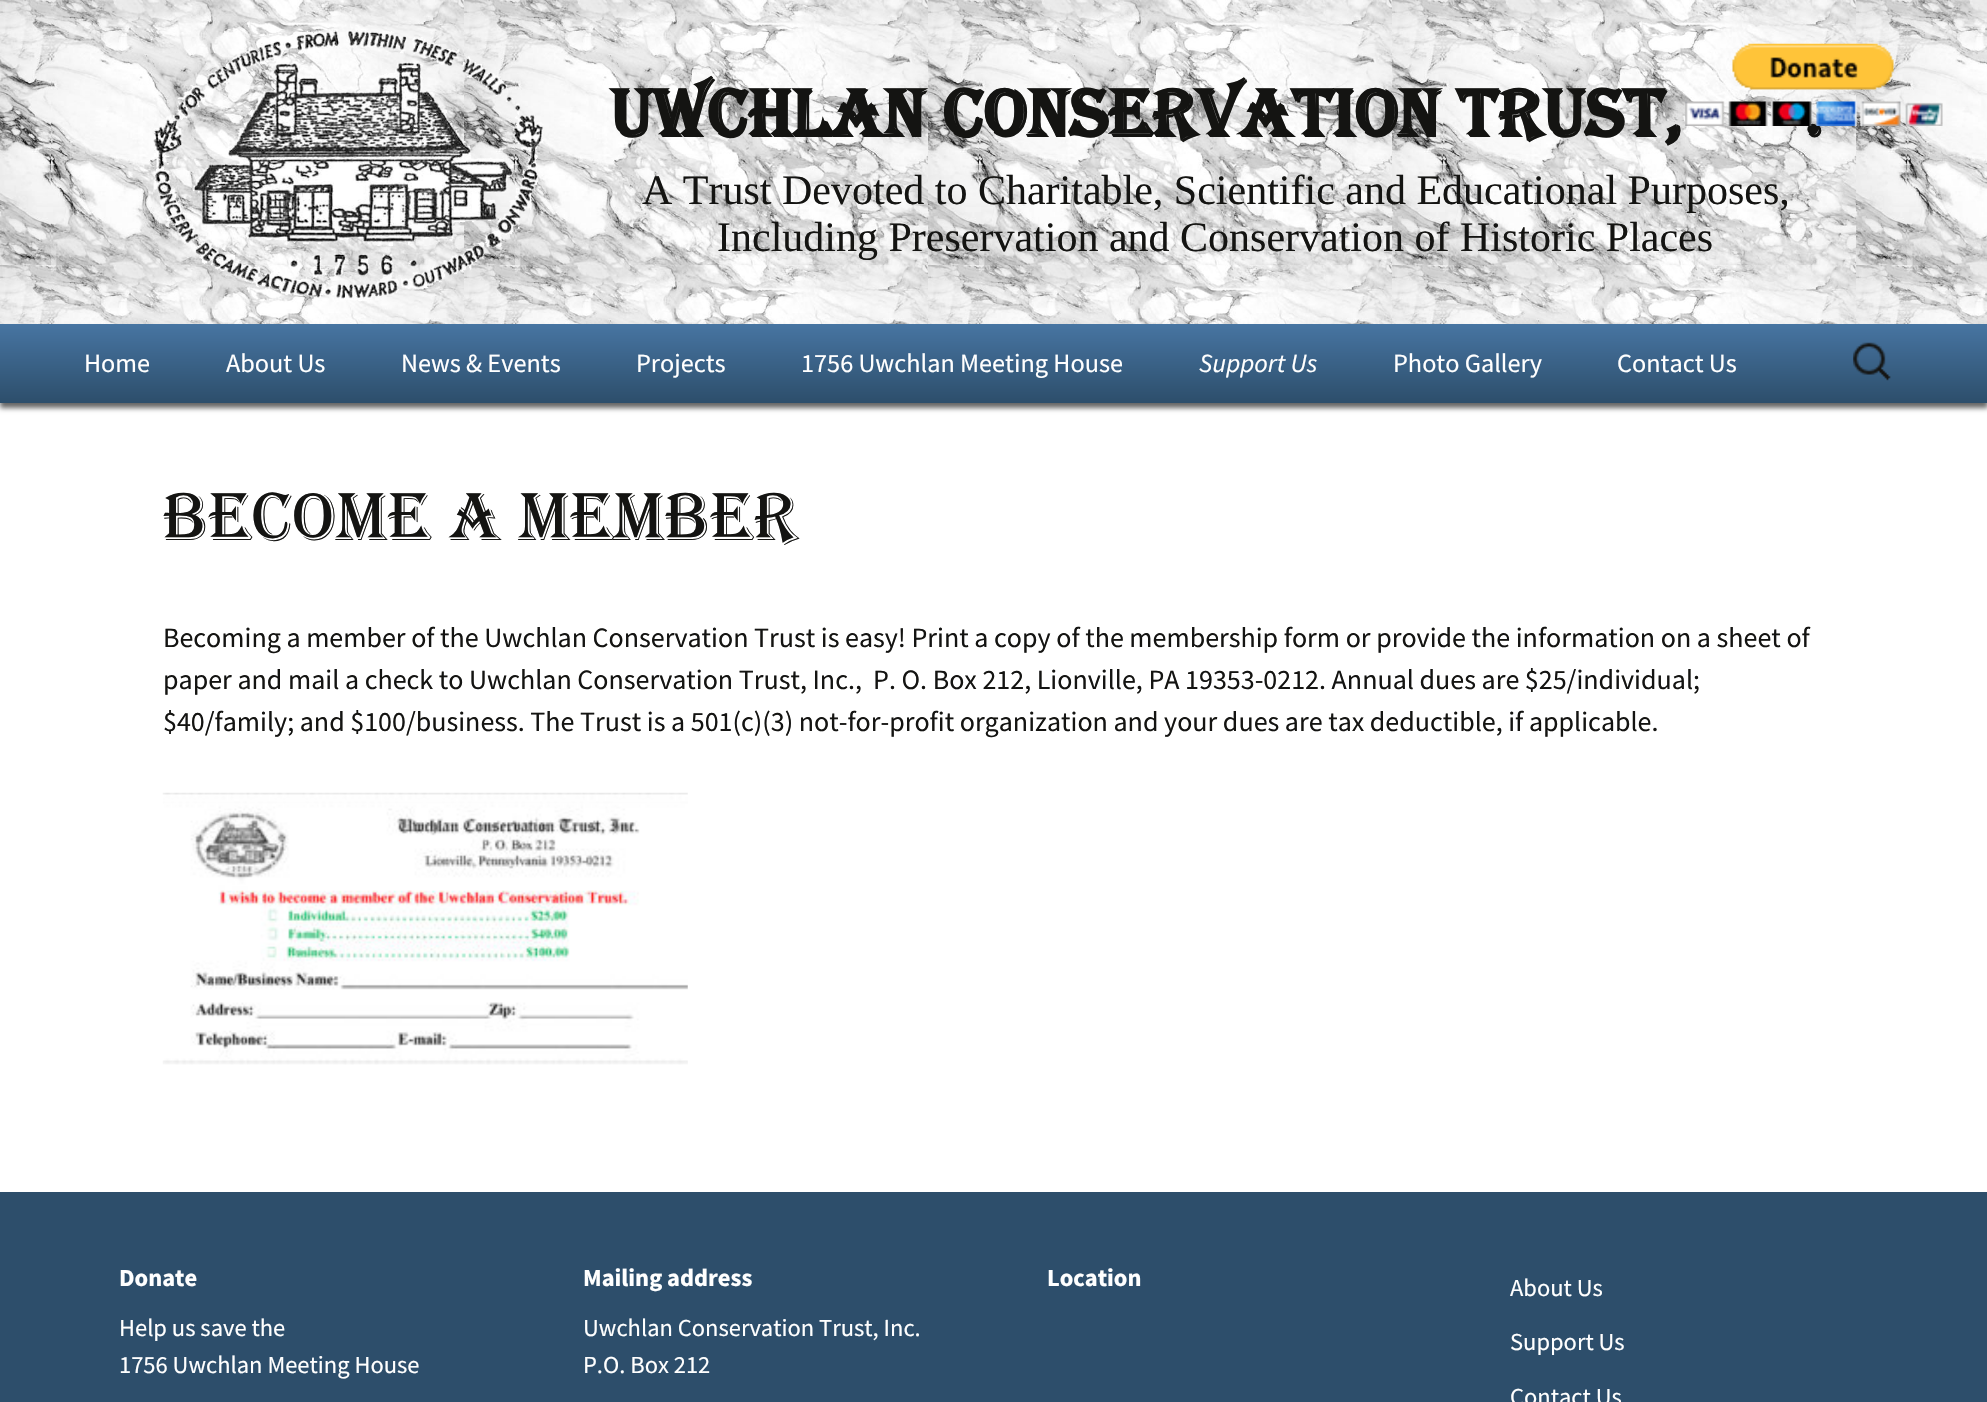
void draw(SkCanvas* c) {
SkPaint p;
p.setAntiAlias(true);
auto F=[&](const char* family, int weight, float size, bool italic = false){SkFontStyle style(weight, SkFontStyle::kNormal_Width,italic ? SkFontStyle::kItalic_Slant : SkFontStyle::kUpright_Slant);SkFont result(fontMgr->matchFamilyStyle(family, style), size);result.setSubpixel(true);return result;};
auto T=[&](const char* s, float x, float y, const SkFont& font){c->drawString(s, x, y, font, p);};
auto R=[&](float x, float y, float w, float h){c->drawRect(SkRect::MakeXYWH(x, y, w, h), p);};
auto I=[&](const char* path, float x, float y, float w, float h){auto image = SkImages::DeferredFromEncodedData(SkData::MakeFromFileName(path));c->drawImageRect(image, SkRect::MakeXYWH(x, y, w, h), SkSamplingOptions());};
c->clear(0xffffffff);
I("1.png",0,0,1987,324);
auto f1 = F("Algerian",700,70);
p.setColor(0xff141412);
T(".",1804,137,f1);
I("2.png",1685,43,258,83);
I("3.png",152,4,392,297);
T("Uwchlan Conservation Trust,",609,137,f1);
auto f2 = F("Liberation Serif",400,42);
T("A Trust Devoted to Charitable, Scientific and Educational Purposes,",642,204,f2);
T("Including Preservation and Conservation of Historic Places",717,251,f2);
p.setColor(0x99000000);
p.setMaskFilter(SkMaskFilter::MakeBlur(kNormal_SkBlurStyle, 2.5));
c->drawRect(SkRect::MakeXYWH(0,329,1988,79),p);
p.setMaskFilter(nullptr);
{
const SkColor colors[] = {0xff4775a2,0xff2d4e6b};
const float stops[] = {0,1};
const SkPoint ends[] = {{994,324}, {994,403}};
p.setShader(SkGradientShader::MakeLinear(ends, colors, stops, 2, SkTileMode::kClamp));
p.setAlpha(255);
}
R(0,324,1987,79);
auto f3 = F("Source Sans Pro",400,26.25);
p.setShader(nullptr);
p.setColor(0xffffffff);
T("Home",84,372,f3);
T("About Us",226,372,f3);
T("News & Events",401,372,f3);
T("Projects",636,372,f3);
T("1756 Uwchlan Meeting House",801,372,f3);
auto f4 = F("Source Sans Pro",400,26.25,true);
T("Support Us",1199,372,f4);
T("Photo Gallery",1393,372,f3);
T("Contact Us",1617,372,f3);
I("4.png",1853,342,38,39);
auto f5 = F("Algerian",400,70);
p.setColor(0xff141412);
T("Become a Member",163,540,f5);
auto f6 = F("Source Sans Pro",400,28);
T("Becoming a member of the Uwchlan Conservation Trust is easy! Print a copy of the membership form or provide the information on a sheet of",163,647,f6);
T("paper and mail a check to Uwchlan Conservation Trust, Inc.,  P. O. Box 212, Lionville, PA 19353-0212. Annual dues are $25/individual;",163,689,f6);
T("$40/family; and $100/business. The Trust is a 501(c)(3) not-for-profit organization and your dues are tax deductible, if applicable.",163,731,f6);
I("5.png",162,792,526,273);
p.setColor(0xff2d4e6b);
R(0,1192,1987,210);
auto f7 = F("Source Sans Pro",700,24.5);
p.setColor(0xffffffff);
T("Donate",119,1286,f7);
auto f8 = F("Source Sans Pro",400,24.5);
T("Help us save the",119,1336,f8);
T("1756 Uwchlan Meeting House",119,1373,f8);
T("Mailing address",583,1286,f7);
T("Uwchlan Conservation Trust, Inc.",583,1336,f8);
T("P.O. Box 212",583,1373,f8);
T("Location",1047,1286,f7);
T("About Us",1510,1296,f8);
T("Support Us",1510,1350,f8);
T("Contact Us",1510,1405,f8);
}
